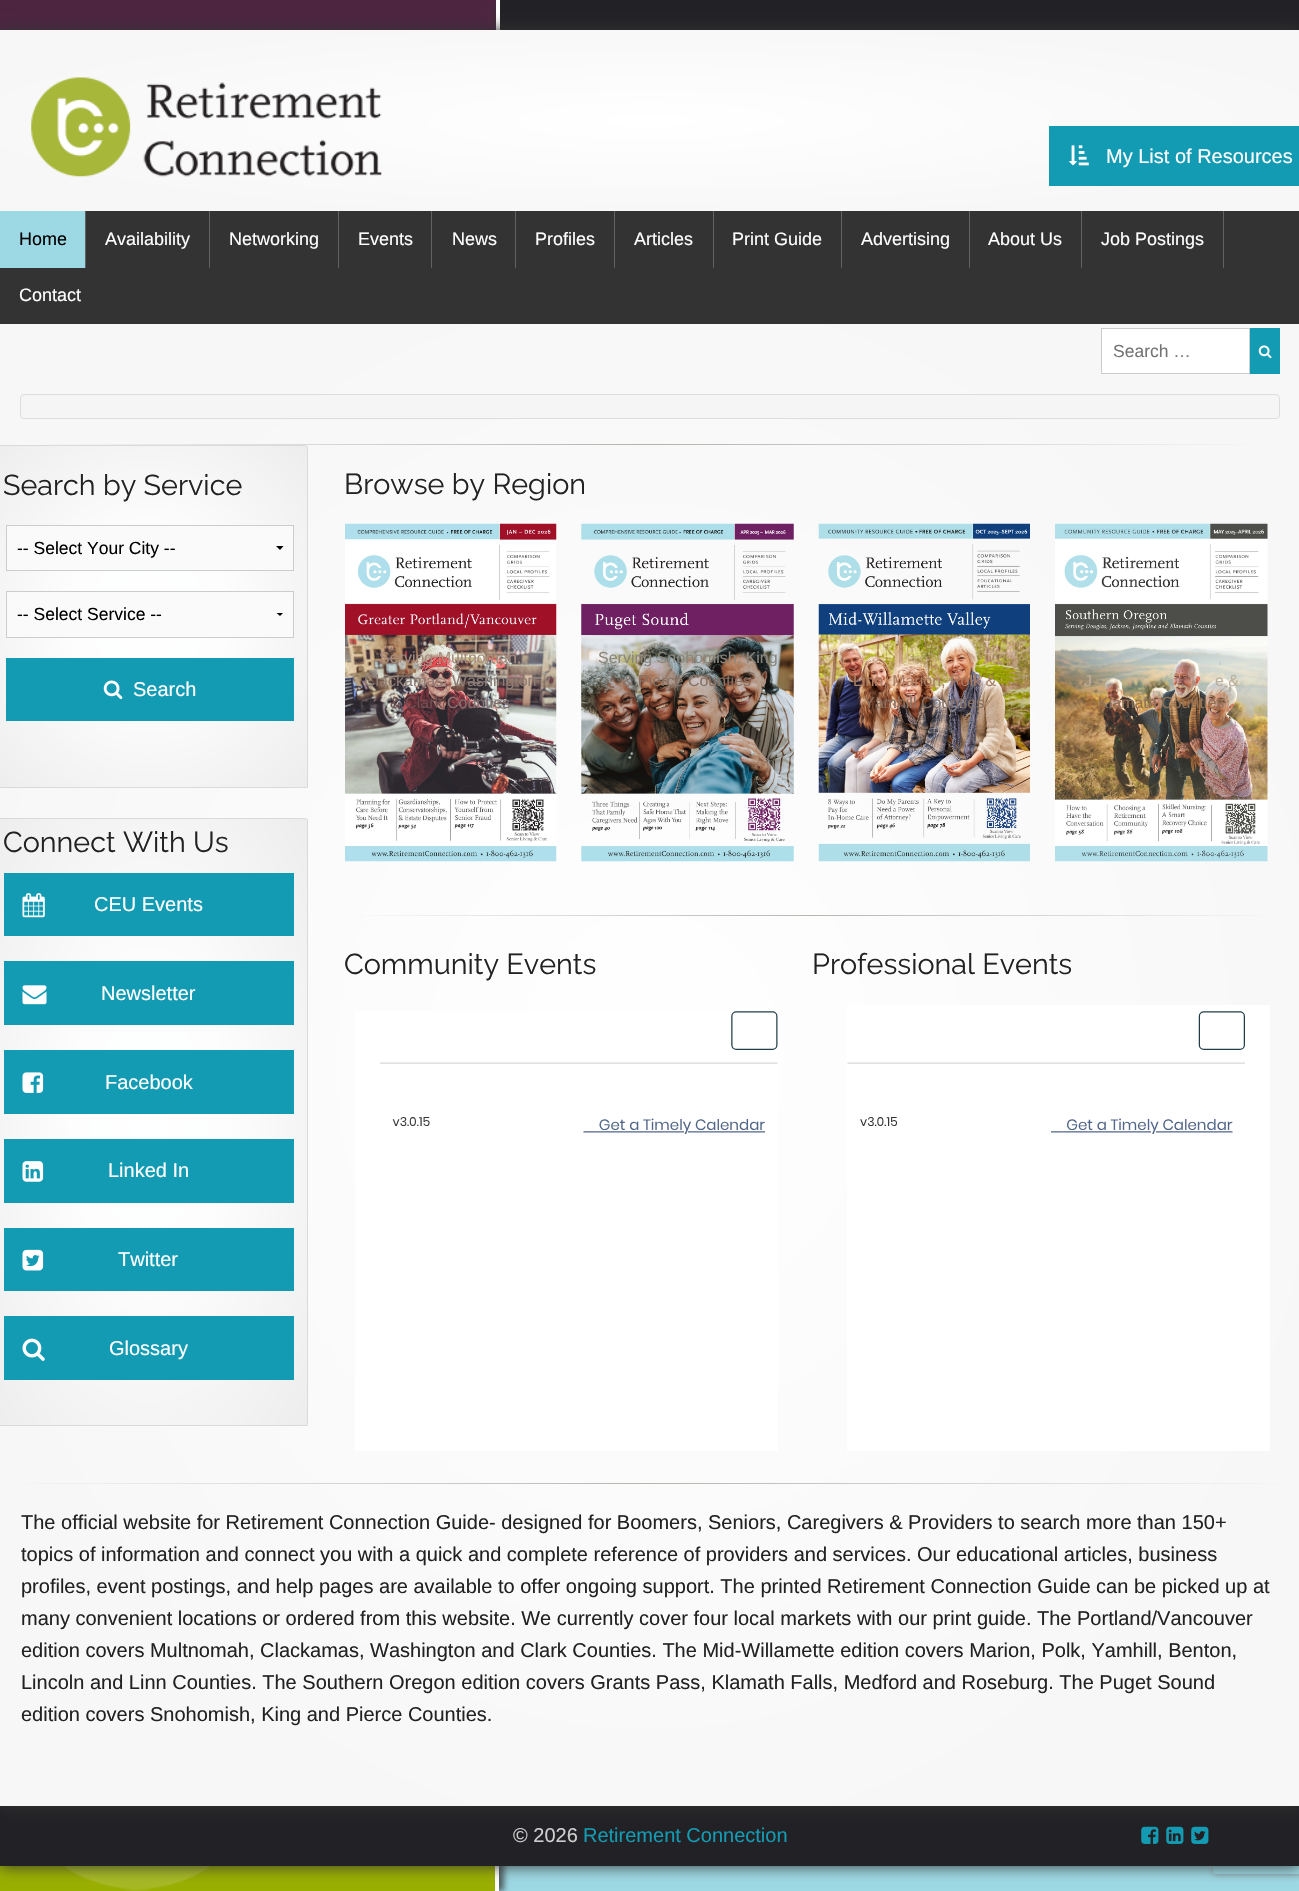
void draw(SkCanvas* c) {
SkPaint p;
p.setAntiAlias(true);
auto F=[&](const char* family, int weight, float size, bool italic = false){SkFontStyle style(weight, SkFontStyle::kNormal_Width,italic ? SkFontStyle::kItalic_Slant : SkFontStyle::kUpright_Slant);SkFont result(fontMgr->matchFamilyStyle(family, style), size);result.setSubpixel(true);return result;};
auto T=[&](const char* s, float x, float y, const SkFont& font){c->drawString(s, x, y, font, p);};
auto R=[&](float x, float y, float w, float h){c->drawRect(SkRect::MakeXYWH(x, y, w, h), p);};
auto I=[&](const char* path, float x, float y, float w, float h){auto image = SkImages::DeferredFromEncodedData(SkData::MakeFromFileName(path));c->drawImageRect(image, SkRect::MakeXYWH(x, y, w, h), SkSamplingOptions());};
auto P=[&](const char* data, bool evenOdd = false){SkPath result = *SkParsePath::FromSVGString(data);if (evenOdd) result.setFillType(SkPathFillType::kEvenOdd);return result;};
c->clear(0xff9dd9e4);
p.setColor(0xff4d2541);
R(0,0,496,30);
p.setColor(0xbf323232);
p.setMaskFilter(SkMaskFilter::MakeBlur(kNormal_SkBlurStyle, 3));
c->drawRect(SkRect::MakeXYWH(496,5,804,480),p);
p.setMaskFilter(nullptr);
p.setColor(0xff222226);
R(500,0,799,30);
p.setColor(0xffffffff);
R(496,0,4,30);
p.setColor(0xff323232);
p.setMaskFilter(SkMaskFilter::MakeBlur(kNormal_SkBlurStyle, 7.5));
c->drawRect(SkRect::MakeXYWH(0,30,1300,181),p);
p.setMaskFilter(nullptr);
{
const SkColor colors[] = {0xffffffff,0xfff7f7f7,0xfff7f7f7};
const float stops[] = {0,.78,1};
SkMatrix m = SkMatrix::Translate(650,121).preScale(919,128);
p.setShader(SkGradientShader::MakeRadial({0, 0}, 1, colors, stops, 3, SkTileMode::kClamp, 0, &m));
p.setAlpha(255);
}
R(0,30,1299,181);
I("1.png",31,77,351,100);
p.setShader(nullptr);
p.setColor(0xff149bb4);
R(1049,126,250,60);
I("2.png",1069,145,20,21);
auto f1 = F("Liberation Sans",400,20);
p.setColor(0xffffffff);
T("My List of Resources",1106,163,f1);
p.setColor(0xbf323232);
p.setMaskFilter(SkMaskFilter::MakeBlur(kNormal_SkBlurStyle, 3));
c->drawRect(SkRect::MakeXYWH(5,480,499,1411),p);
p.setMaskFilter(nullptr);
p.setColor(0xff99af00);
R(0,1866,495,25);
I("17.png",63,1866,148,25);
p.setColor(0xffffffff);
R(495,1866,4,25);
p.setColor(0xff323232);
p.setMaskFilter(SkMaskFilter::MakeBlur(kNormal_SkBlurStyle, 7.5));
c->drawRect(SkRect::MakeXYWH(0,1806,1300,60),p);
p.setMaskFilter(nullptr);
c->save();
c->clipPath(P("M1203 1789h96v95h-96zm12.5 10h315c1.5 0 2.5 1 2.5 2.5v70c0 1.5-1 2.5-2.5 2.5h-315c-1.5 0-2.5-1-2.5-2.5v-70c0-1.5 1-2.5 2.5-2.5z",true),true);
p.setColor(0xff808080);
p.setMaskFilter(SkMaskFilter::MakeBlur(kNormal_SkBlurStyle, 3));
c->drawRoundRect(SkRect::MakeXYWH(1213,1799,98,75),2.5,2.5,p);
p.setMaskFilter(nullptr);
c->restore();
p.setColor(0xff222226);
R(0,1806,1299,60);
I("18.png",1141,1826,18,18);
I("19.png",1166,1826,18,18);
I("20.png",1191,1826,18,18);
p.setColor(0xff323232);
p.setMaskFilter(SkMaskFilter::MakeBlur(kNormal_SkBlurStyle, 7.5));
c->drawRect(SkRect::MakeXYWH(0,324,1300,1482),p);
p.setMaskFilter(nullptr);
p.setColor(0xff333333);
R(0,211,1299,113);
p.setColor(0xff9dd9e4);
R(0,211,85,57);
auto f2 = F("Liberation Sans",400,18);
p.setColor(0xff000000);
T("Home",19,245,f2);
p.setColor(0xff616161);
R(85,211,1,57);
p.setColor(0xffffffff);
T("Availability",105,245,f2);
p.setColor(0xff616161);
R(209,211,1,57);
p.setColor(0xffffffff);
T("Networking",229,245,f2);
p.setColor(0xff616161);
R(338,211,1,57);
p.setColor(0xffffffff);
T("Events",358,245,f2);
p.setColor(0xff616161);
R(431,211,1,57);
p.setColor(0xffffffff);
T("News",452,245,f2);
p.setColor(0xff616161);
R(515,211,1,57);
p.setColor(0xffffffff);
T("Profiles",535,245,f2);
p.setColor(0xff616161);
R(614,211,1,57);
p.setColor(0xffffffff);
T("Articles",634,245,f2);
p.setColor(0xff616161);
R(713,211,1,57);
p.setColor(0xffffffff);
T("Print Guide",732,245,f2);
p.setColor(0xff616161);
R(841,211,1,57);
p.setColor(0xffffffff);
T("Advertising",861,245,f2);
p.setColor(0xff616161);
R(969,211,1,57);
p.setColor(0xffffffff);
T("About Us",988,245,f2);
p.setColor(0xff616161);
R(1081,211,1,57);
p.setColor(0xffffffff);
T("Job Postings",1101,245,f2);
p.setColor(0xff616161);
R(1223,211,1,57);
p.setColor(0xffffffff);
T("Contact",19,301,f2);
{
const SkColor colors[] = {0xffffffff,0xfff7f7f7,0xfff7f7f7};
const float stops[] = {0,.78,1};
SkMatrix m = SkMatrix::Translate(650,1065).preScale(919,1048);
p.setShader(SkGradientShader::MakeRadial({0, 0}, 1, colors, stops, 3, SkTileMode::kClamp, 0, &m));
p.setAlpha(255);
}
R(0,324,1299,1482);
p.setShader(nullptr);
p.setColor(0xffffffff);
c->drawRect(SkRect::MakeXYWH(1101.5,328.5,148,45),p);
p.setStroke(true);
p.setStrokeWidth(1);
p.setColor(0xffcccccc);
c->drawRect(SkRect::MakeXYWH(1101.5,328.5,148,45),p);
auto f3 = F("Liberation Sans",400,17.5);
p.setStroke(false);
p.setColor(0xff757575);
T("Search …",1113,357,f3);
p.setColor(0xff149bb4);
R(1250,328,30,46);
I("3.png",1258,345,14,14);
p.setColor(0xfff5f5f5);
c->drawRoundRect(SkRect::MakeXYWH(20.5,394.5,1259,24),3.5,3.5,p);
p.setStroke(true);
p.setColor(0xffdddddd);
c->drawRoundRect(SkRect::MakeXYWH(20.5,394.5,1259,24),3.5,3.5,p);
p.setStroke(false);
{
const SkColor colors[] = {0xfff8f8f8,0xffb5b3ac,0xfff8f8f8};
const float stops[] = {0,.5,1};
const SkPoint ends[] = {{20,444}, {1280,444}};
p.setShader(SkGradientShader::MakeLinear(ends, colors, stops, 3, SkTileMode::kClamp));
p.setAlpha(255);
}
R(49,444,1202,1);
{
const SkColor colors[] = {0xfffeffff,0xfffdfdfd,0xffededed};
const float stops[] = {0,.35,1};
SkMatrix m = SkMatrix::Translate(149,616).preScale(223,240);
p.setShader(SkGradientShader::MakeRadial({0, 0}, 1, colors, stops, 3, SkTileMode::kClamp, 0, &m));
p.setAlpha(255);
}
R(0,446,306,340);
{
const SkColor colors[] = {0xfffeffff,0xfffdfdfd,0xffededed};
const float stops[] = {0,.35,1};
SkMatrix m = SkMatrix::Translate(464,616).preScale(223,240);
p.setShader(SkGradientShader::MakeRadial({0, 0}, 1, colors, stops, 3, SkTileMode::kClamp, 0, &m));
p.setAlpha(255);
}
R(306,446,2,340);
{
const SkColor colors[] = {0xfffeffff,0xfffdfdfd,0xffededed};
const float stops[] = {0,.35,1};
SkMatrix m = SkMatrix::Translate(149,956).preScale(223,240);
p.setShader(SkGradientShader::MakeRadial({0, 0}, 1, colors, stops, 3, SkTileMode::kClamp, 0, &m));
p.setAlpha(255);
}
R(0,786,306,1);
{
const SkColor colors[] = {0xfffeffff,0xfffdfdfd,0xffededed};
const float stops[] = {0,.35,1};
SkMatrix m = SkMatrix::Translate(464,956).preScale(223,240);
p.setShader(SkGradientShader::MakeRadial({0, 0}, 1, colors, stops, 3, SkTileMode::kClamp, 0, &m));
p.setAlpha(255);
}
R(306,786,2,1);
p.setStroke(true);
p.setShader(nullptr);
p.setColor(0xffdadada);
c->drawPath(P("M-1.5 445.5h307c1 0 2 1 2 2v340h-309c-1 0-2-1-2-2v-338c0-1 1-2 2-2z"),p);
auto f4 = F("Raleway",100,28.75);
p.setStroke(false);
p.setColor(0xff222222);
T("Search by Service",3,495,f4);
p.setColor(0xfffafafa);
R(7,526,286,44);
p.setColor(0xff000000);
c->drawPath(P("M283.5 546l-3.5 4l-4-4z"),p);
p.setStroke(true);
p.setColor(0xffcccccc);
c->drawRect(SkRect::MakeXYWH(6.5,525.5,287,45),p);
p.setStroke(false);
p.setColor(0xff000000);
T("-- Select Your City --",17,554,f3);
p.setColor(0xfffafafa);
R(7,592,286,45);
c->save();
c->clipRect(SkRect::MakeXYWH(276,613,8,4));
p.setColor(0xff000000);
c->drawPath(P("M283.5 612.5l-3.5 3.5l-4-3.5z"),p);
c->restore();
p.setStroke(true);
p.setColor(0xffcccccc);
c->drawRect(SkRect::MakeXYWH(6.5,591.5,287,46),p);
p.setStroke(false);
p.setColor(0xff000000);
T("-- Select Service --",17,620,f3);
p.setColor(0xff149bb4);
R(6,658,288,63);
I("4.png",103,680,20,20);
p.setColor(0xffffffff);
T("Search",133,696,f1);
{
const SkColor colors[] = {0xfffeffff,0xfffdfdfd,0xffededed};
const float stops[] = {0,.35,1};
SkMatrix m = SkMatrix::Translate(149,1122).preScale(223,429);
p.setShader(SkGradientShader::MakeRadial({0, 0}, 1, colors, stops, 3, SkTileMode::kClamp, 0, &m));
p.setAlpha(255);
}
R(0,819,306,606);
{
const SkColor colors[] = {0xfffeffff,0xfffdfdfd,0xffededed};
const float stops[] = {0,.35,1};
SkMatrix m = SkMatrix::Translate(464,1122).preScale(223,429);
p.setShader(SkGradientShader::MakeRadial({0, 0}, 1, colors, stops, 3, SkTileMode::kClamp, 0, &m));
p.setAlpha(255);
}
R(306,819,2,606);
p.setStroke(true);
p.setShader(nullptr);
p.setColor(0xffdadada);
c->drawPath(P("M-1.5 818.5h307c1 0 2 1 2 2v605h-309c-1 0-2-1-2-2v-603c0-1 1-2 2-2z"),p);
p.setStroke(false);
p.setColor(0xff222222);
T("Connect With Us",3,852,f4);
p.setColor(0xff149bb4);
R(4,873,290,63);
I("5.png",22,893,23,25);
p.setColor(0xffffffff);
T("CEU Events",94,911,f1);
p.setColor(0xff149bb4);
R(4,961,290,64);
I("6.png",22,985,25,20);
p.setColor(0xffffffff);
T("Newsletter",101,1000,f1);
p.setColor(0xff149bb4);
R(4,1050,290,64);
I("7.png",22,1072,22,21);
p.setColor(0xffffffff);
T("Facebook",105,1089,f1);
p.setColor(0xff149bb4);
R(4,1139,290,64);
I("8.png",22,1161,22,21);
p.setColor(0xffffffff);
T("Linked In",108,1177,f1);
p.setColor(0xff149bb4);
R(4,1228,290,63);
I("9.png",22,1249,22,22);
p.setColor(0xffffffff);
T("Twitter",118,1266,f1);
p.setColor(0xff149bb4);
R(4,1316,290,64);
I("10.png",22,1338,23,23);
p.setColor(0xffffffff);
T("Glossary",109,1355,f1);
p.setColor(0xff222222);
T("Browse by Region",344,494,f4);
I("11.png",345,523,212,339);
auto f5 = F("Liberation Sans",400,16);
p.setColor(0xffa88c7f);
T("Serving Multnomah,",379,663,f5);
p.setColor(0xff8c7b74);
T("Clackamas, Washington",364,686,f5);
p.setColor(0xff704e51);
T("& Clark",390,708,f5);
p.setColor(0xff857072);
T("Counties",447,708,f5);
I("12.png",581,523,213,339);
p.setColor(0xff8a877d);
T("Serving Snohomish, King",598,663,f5);
p.setColor(0xff887265);
T("& Pierce Counties",623,686,f5);
I("13.png",818,523,212,339);
p.setColor(0xffc6a772);
T(",",1007,663,f5);
p.setColor(0xffa87e65);
T("Linn, Marion, Polk &",853,686,f5);
p.setColor(0xff887265);
T("Yamhill Counties",864,708,f5);
I("14.png",1055,523,213,339);
p.setColor(0xffc2cbc7);
T(",",1218,663,f5);
p.setColor(0xffbdae98);
T("J",1084,686,f5);
T("e &",1215,686,f5);
p.setColor(0xff927254);
T("Klamath Counties",1098,708,f5);
{
const SkColor colors[] = {0x009f9c93,0xbf9f9c93,0x009f9c93};
const float stops[] = {0,.5,1};
const SkPoint ends[] = {{345,916}, {1280,916}};
p.setShader(SkGradientShader::MakeLinear(ends, colors, stops, 3, SkTileMode::kClamp));
p.setAlpha(255);
}
R(358,915,909,1);
p.setShader(nullptr);
p.setColor(0xff222222);
T("Community Events",344,974,f4);
I("15.png",355,1011,423,440);
T("Professional Events",812,974,f4);
I("16.png",847,1005,423,446);
{
const SkColor colors[] = {0x009f9c93,0xbf9f9c93,0x009f9c93};
const float stops[] = {0,.5,1};
const SkPoint ends[] = {{1.2,1483}, {1299,1483}};
p.setShader(SkGradientShader::MakeLinear(ends, colors, stops, 3, SkTileMode::kClamp));
p.setAlpha(255);
}
R(20,1483,1260,1);
p.setShader(nullptr);
p.setColor(0xff222222);
T("The official website for Retirement Connection Guide- designed for Boomers, Seniors, Caregivers & Providers to search more than 150+",21,1529,f1);
T("topics of information and connect you with a quick and complete reference of providers and services. Our educational articles, business",21,1561,f1);
T("profiles, event postings, and help pages are available to offer ongoing support. The printed Retirement Connection Guide can be picked up at",21,1593,f1);
T("many convenient locations or ordered from this website. We currently cover four local markets with our print guide. The Portland/Vancouver",21,1625,f1);
T("edition covers Multnomah, Clackamas, Washington and Clark Counties. The Mid-Willamette edition covers Marion, Polk, Yamhill, Benton,",21,1657,f1);
T("Lincoln and Linn Counties. The Southern Oregon edition covers Grants Pass, Klamath Falls, Medford and Roseburg. The Puget Sound",21,1689,f1);
T("edition covers Snohomish, King and Pierce Counties.",21,1721,f1);
p.setColor(0xffcfcfcf);
T("© 2026",513,1842,f1);
p.setColor(0xff149bb4);
T("Retirement Connection",583,1842,f1);
}
